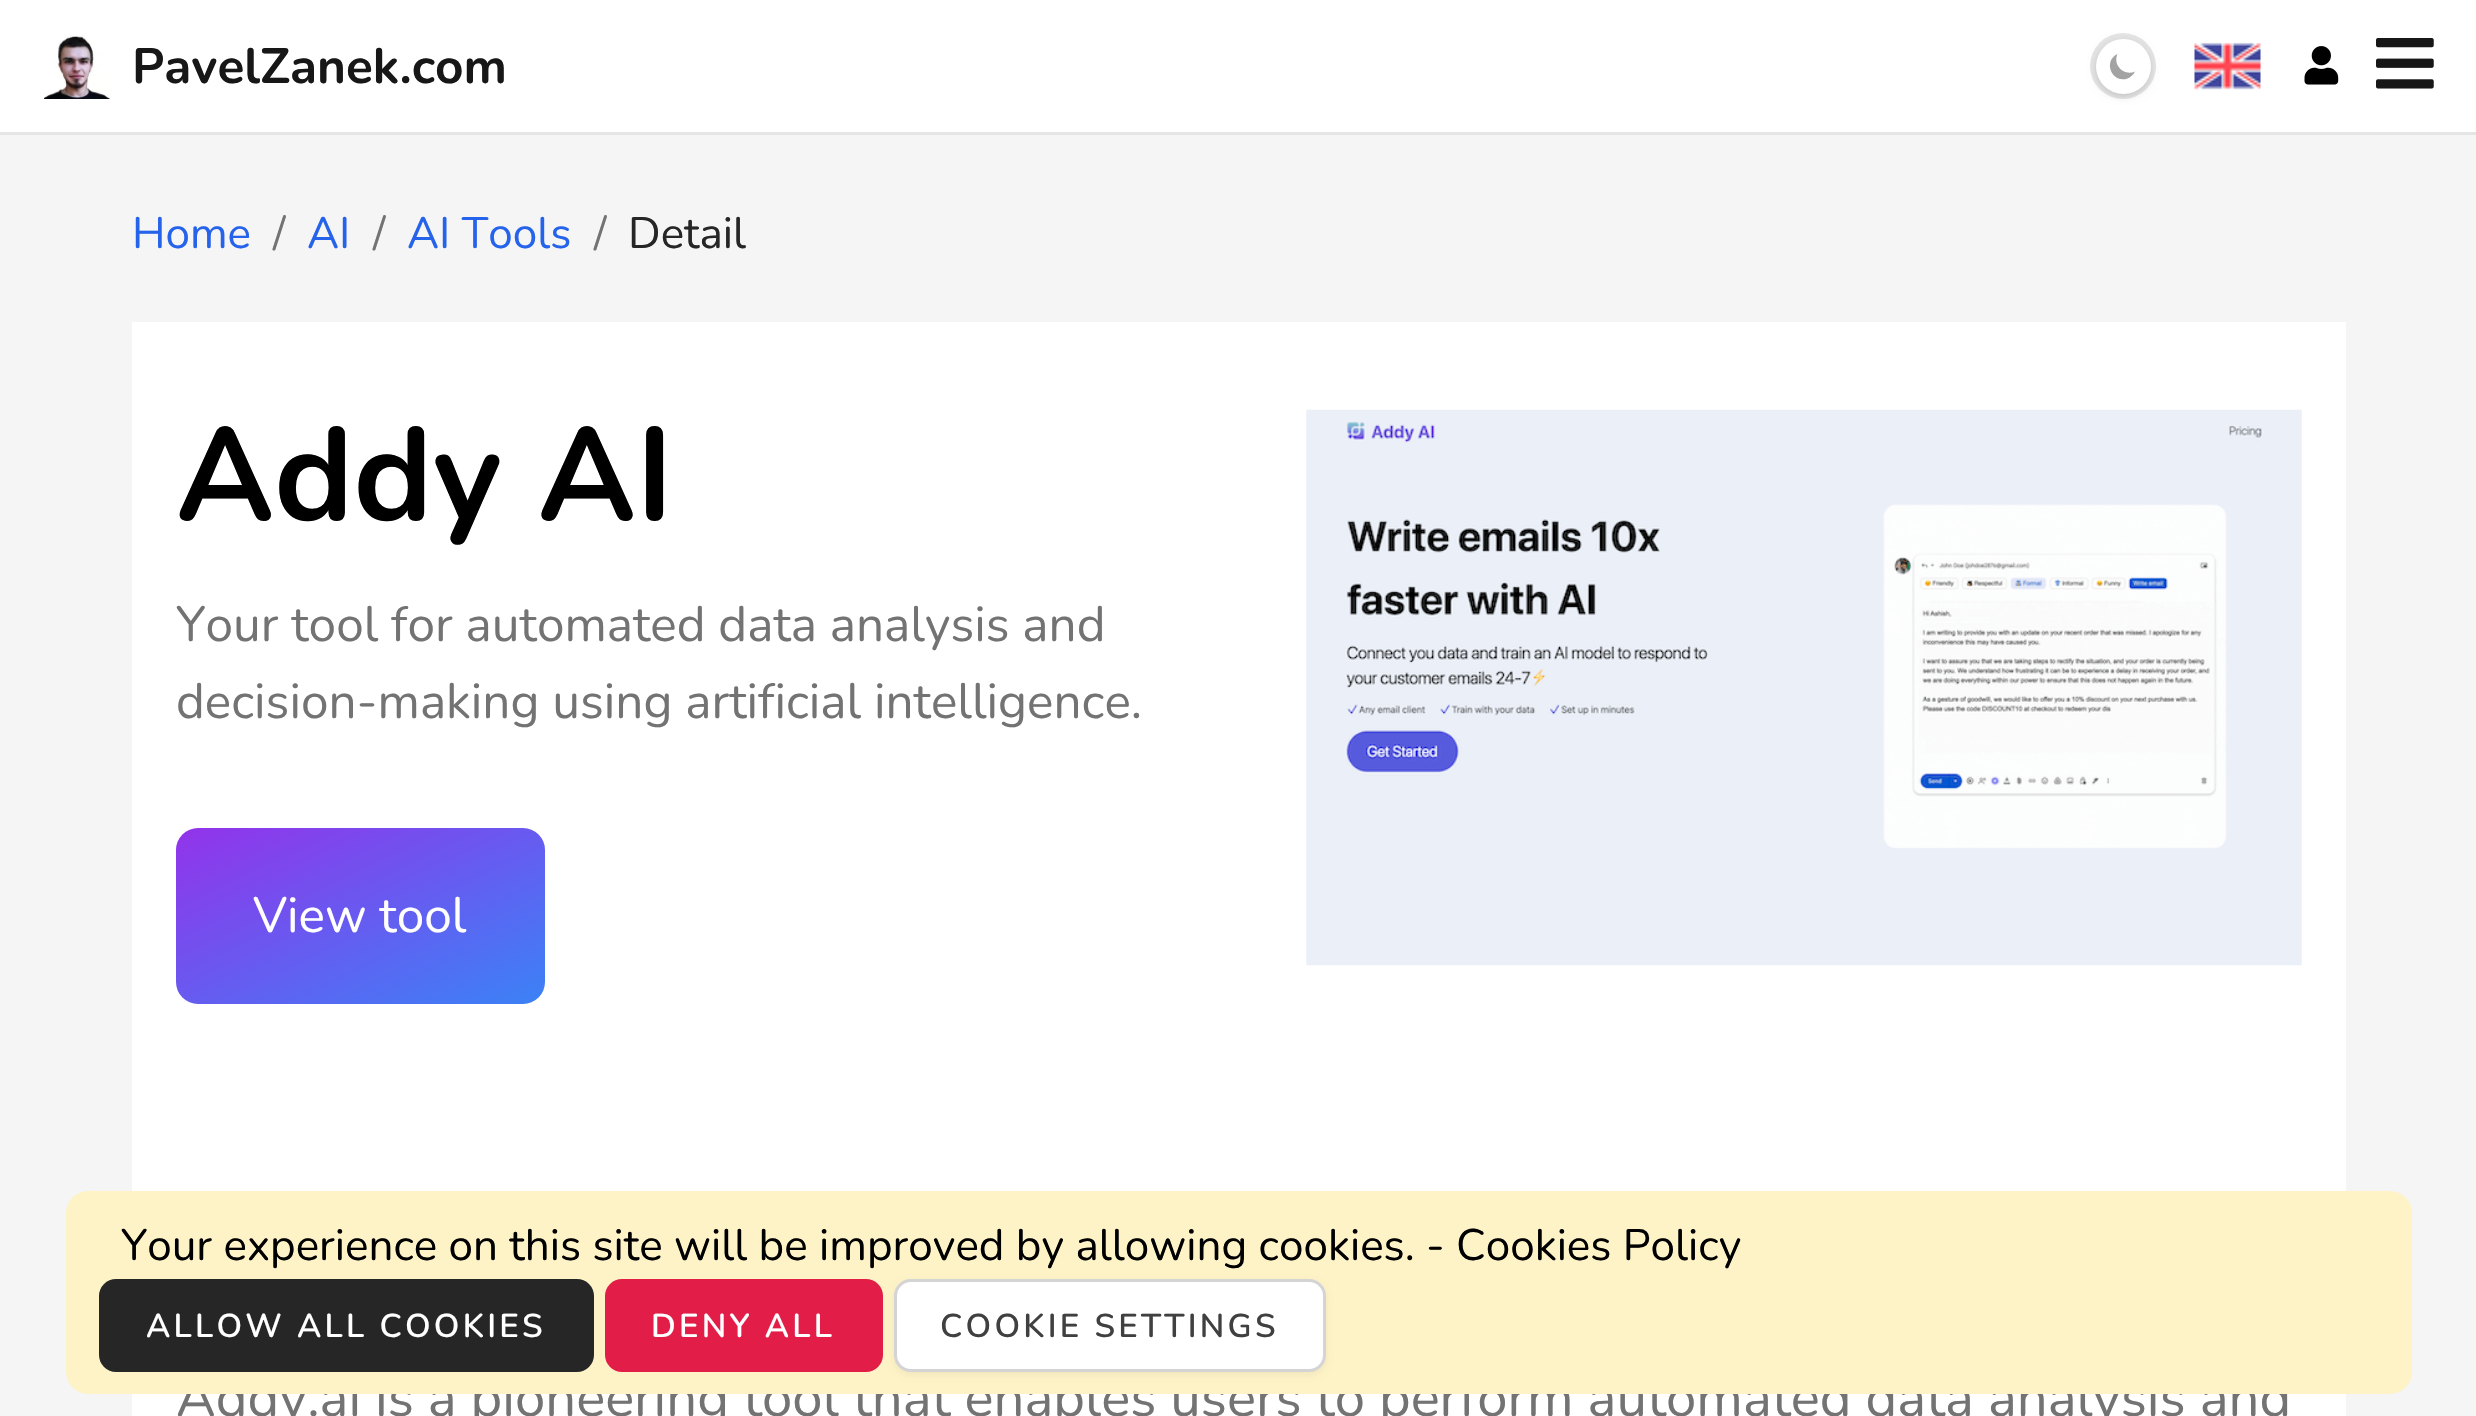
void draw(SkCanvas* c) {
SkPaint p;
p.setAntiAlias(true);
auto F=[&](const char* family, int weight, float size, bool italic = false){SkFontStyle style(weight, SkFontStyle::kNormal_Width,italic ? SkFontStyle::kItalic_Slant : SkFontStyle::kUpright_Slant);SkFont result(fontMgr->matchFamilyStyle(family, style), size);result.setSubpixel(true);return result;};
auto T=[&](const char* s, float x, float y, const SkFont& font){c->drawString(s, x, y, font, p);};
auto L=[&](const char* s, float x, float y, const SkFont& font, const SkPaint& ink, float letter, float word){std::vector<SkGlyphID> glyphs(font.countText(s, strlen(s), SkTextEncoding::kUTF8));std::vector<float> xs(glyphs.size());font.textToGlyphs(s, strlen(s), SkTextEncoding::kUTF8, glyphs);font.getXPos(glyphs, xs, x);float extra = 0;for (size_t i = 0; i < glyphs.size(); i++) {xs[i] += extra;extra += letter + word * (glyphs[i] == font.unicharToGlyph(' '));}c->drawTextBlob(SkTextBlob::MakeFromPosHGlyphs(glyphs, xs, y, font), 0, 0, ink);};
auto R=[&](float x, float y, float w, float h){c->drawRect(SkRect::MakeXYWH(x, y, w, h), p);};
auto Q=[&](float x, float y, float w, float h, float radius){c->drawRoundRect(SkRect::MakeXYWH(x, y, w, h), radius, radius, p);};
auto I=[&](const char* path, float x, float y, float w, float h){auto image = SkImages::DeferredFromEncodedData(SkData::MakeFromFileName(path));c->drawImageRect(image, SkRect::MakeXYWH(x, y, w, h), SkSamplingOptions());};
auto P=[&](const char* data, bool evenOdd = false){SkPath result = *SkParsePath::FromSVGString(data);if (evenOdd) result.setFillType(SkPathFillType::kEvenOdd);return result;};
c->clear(0xfff5f5f5);
p.setColor(0xffffffff);
R(0,0,2476,132);
I("1.png",44,35,66,64);
auto f1 = F("Nunito",200,49.5);
p.setColor(0xff171717);
T("PavelZanek.com",132,83,f1);
p.setColor(0xffe5e5e5);
c->drawCircle(2123,66,33,p);
p.setColor(0x1a000000);
p.setMaskFilter(SkMaskFilter::MakeBlur(kNormal_SkBlurStyle, 3));
c->drawRoundRect(SkRect::MakeXYWH(2098,44,50,50),25,25,p);
p.setMaskFilter(nullptr);
p.setMaskFilter(SkMaskFilter::MakeBlur(kNormal_SkBlurStyle, 4));
c->drawRoundRect(SkRect::MakeXYWH(2096,41,55,55),27.5,27.5,p);
p.setMaskFilter(nullptr);
p.setColor(0xffffffff);
c->drawCircle(2123.5,66.5,27.5,p);
p.setColor(0xffa3a3a3);
c->drawPath(P("M2135 71.5c-11 5-22.5-6.5-17.5-17.5c-15 7-5.5 30 10 24.5c3.5-1.5 6-4 7.5-7z"),p);
I("2.png",2194,42,67,48);
I("3.png",2304,46,35,39);
I("4.png",2376,38,58,51);
p.setColor(0xffe5e5e5);
R(0,132,2476,3);
auto f2 = F("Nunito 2",200,44);
p.setColor(0xff2563eb);
T("Home",132,248,f2);
p.setColor(0xff737373);
T("/",273,248,f2);
p.setColor(0xff2563eb);
T("AI",307,248,f2);
p.setColor(0xff737373);
T("/",373,248,f2);
p.setColor(0xff2563eb);
T("AI Tools",407,248,f2);
p.setColor(0xff737373);
T("/",594,248,f2);
p.setColor(0xff262626);
T("Detail",628,248,f2);
p.setColor(0xffffffff);
R(132,322,2214,869);
auto f3 = F("Nunito",200,132);
p.setColor(0xff000000);
T("Addy AI",176,520,f3);
auto f4 = F("Nunito 2",200,49.5);
p.setColor(0xff737373);
T("Your tool for automated data analysis and",176,641,f4);
T("decision-making using artificial intelligence.",176,718,f4);
{
const SkColor colors[] = {0xff9333ea,0xff3b82f6};
const float stops[] = {0,1};
const SkPoint ends[] = {{292,772}, {429,1059}};
p.setShader(SkGradientShader::MakeLinear(ends, colors, stops, 2, SkTileMode::kClamp));
p.setAlpha(255);
}
Q(176,828,369,176,22);
p.setShader(nullptr);
p.setColor(0xffffffff);
T("View tool",253,932,f4);
I("5.png",1306,409,996,557);
R(132,1394,2214,22);
auto f5 = F("Nunito 2",200,54.45);
p.setColor(0xff737373);
L("Addy.ai is a pioneering tool that enables users to perform automated data analysis and",176,1416,f5,p,0,-.1);
p.setColor(0xfffef3c7);
Q(66,1191,2346,203,22);
p.setColor(0xff000000);
T("Your experience on this site will be improved by allowing cookies. - Cookies Policy",121,1260,f2);
p.setColor(0xff262626);
Q(99,1279,495,93,17);
auto f6 = F("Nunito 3",200,33);
p.setColor(0xffffffff);
L("ALLOW ALL COOKIES",146,1337,f6,p,3.25,0);
p.setColor(0xffe11d48);
Q(605,1279,278,93,17);
p.setColor(0xffffffff);
L("DENY ALL",651,1337,f6,p,3.25,0);
p.setColor(0x0d000000);
p.setMaskFilter(SkMaskFilter::MakeBlur(kNormal_SkBlurStyle, 3));
c->drawRoundRect(SkRect::MakeXYWH(894,1282,432,93),17,17,p);
p.setMaskFilter(nullptr);
p.setColor(0xffffffff);
c->drawRoundRect(SkRect::MakeXYWH(895.5,1280.5,429,90),15.5,15.5,p);
p.setStroke(true);
p.setStrokeWidth(3);
p.setColor(0xffd4d4d4);
c->drawRoundRect(SkRect::MakeXYWH(895.5,1280.5,429,90),15.5,15.5,p);
p.setStroke(false);
p.setColor(0xff404040);
L("COOKIE SETTINGS",940,1337,f6,p,3.25,0);
}
